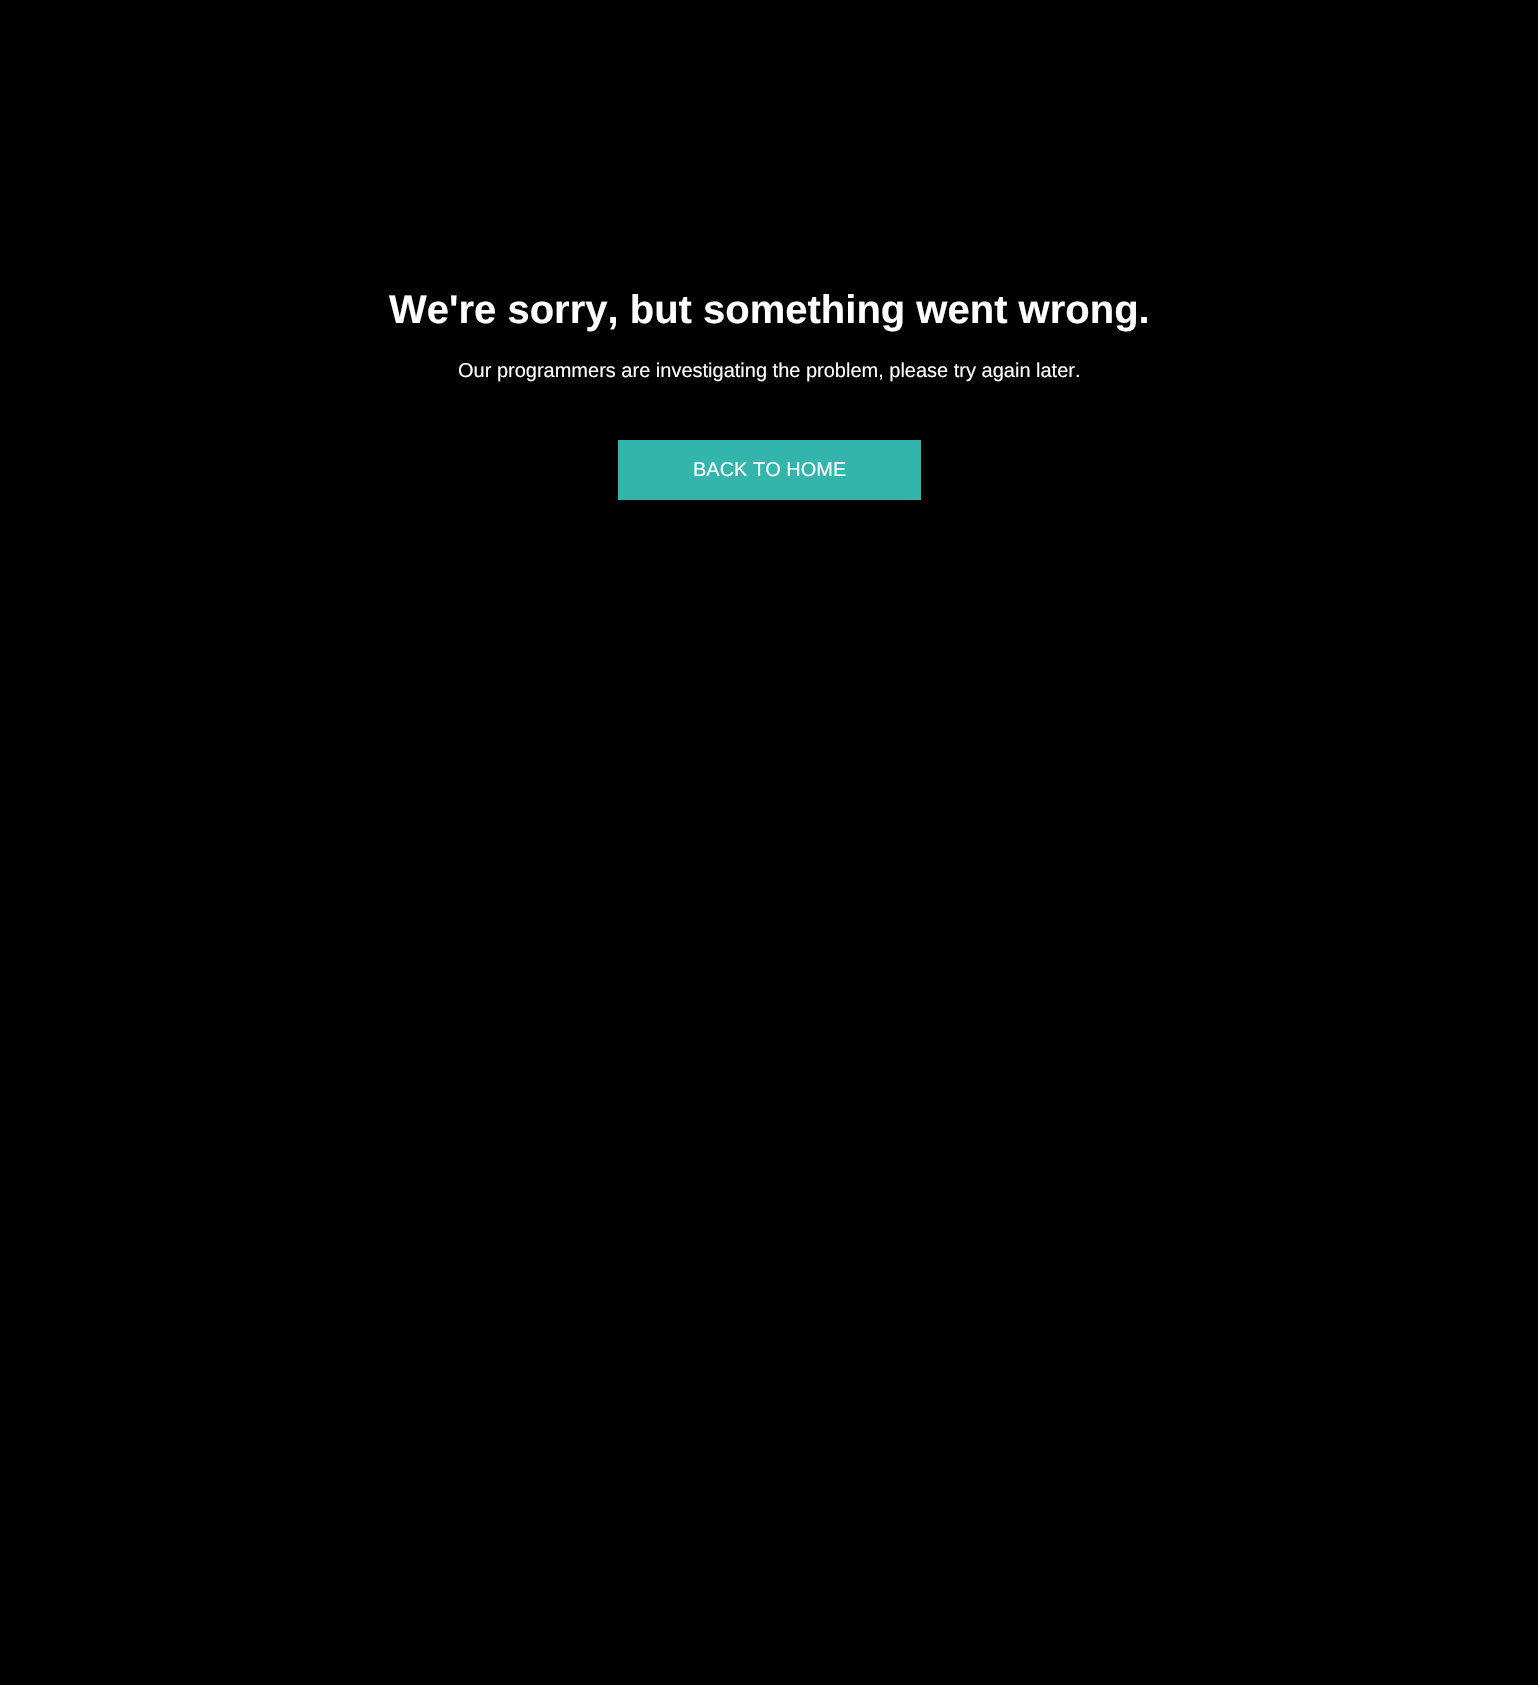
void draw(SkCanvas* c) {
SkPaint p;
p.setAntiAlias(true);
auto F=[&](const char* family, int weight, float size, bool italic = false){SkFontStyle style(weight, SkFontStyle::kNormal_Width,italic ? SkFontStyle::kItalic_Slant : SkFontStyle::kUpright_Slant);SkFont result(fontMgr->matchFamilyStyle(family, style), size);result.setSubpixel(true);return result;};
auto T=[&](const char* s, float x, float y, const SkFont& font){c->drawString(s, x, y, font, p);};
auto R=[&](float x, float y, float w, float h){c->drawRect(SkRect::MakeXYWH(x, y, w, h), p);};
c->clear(0xff000000);
auto f1 = F("Liberation Sans",700,40);
p.setColor(0xffffffff);
T("We're sorry, but something went wrong.",389,323,f1);
auto f2 = F("Liberation Sans",400,20);
T("Our programmers are investigating the problem, please try again later.",458,377,f2);
p.setColor(0xff33b5ab);
R(618,440,303,60);
p.setColor(0xffffffff);
T("BACK TO HOME",693,476,f2);
}
